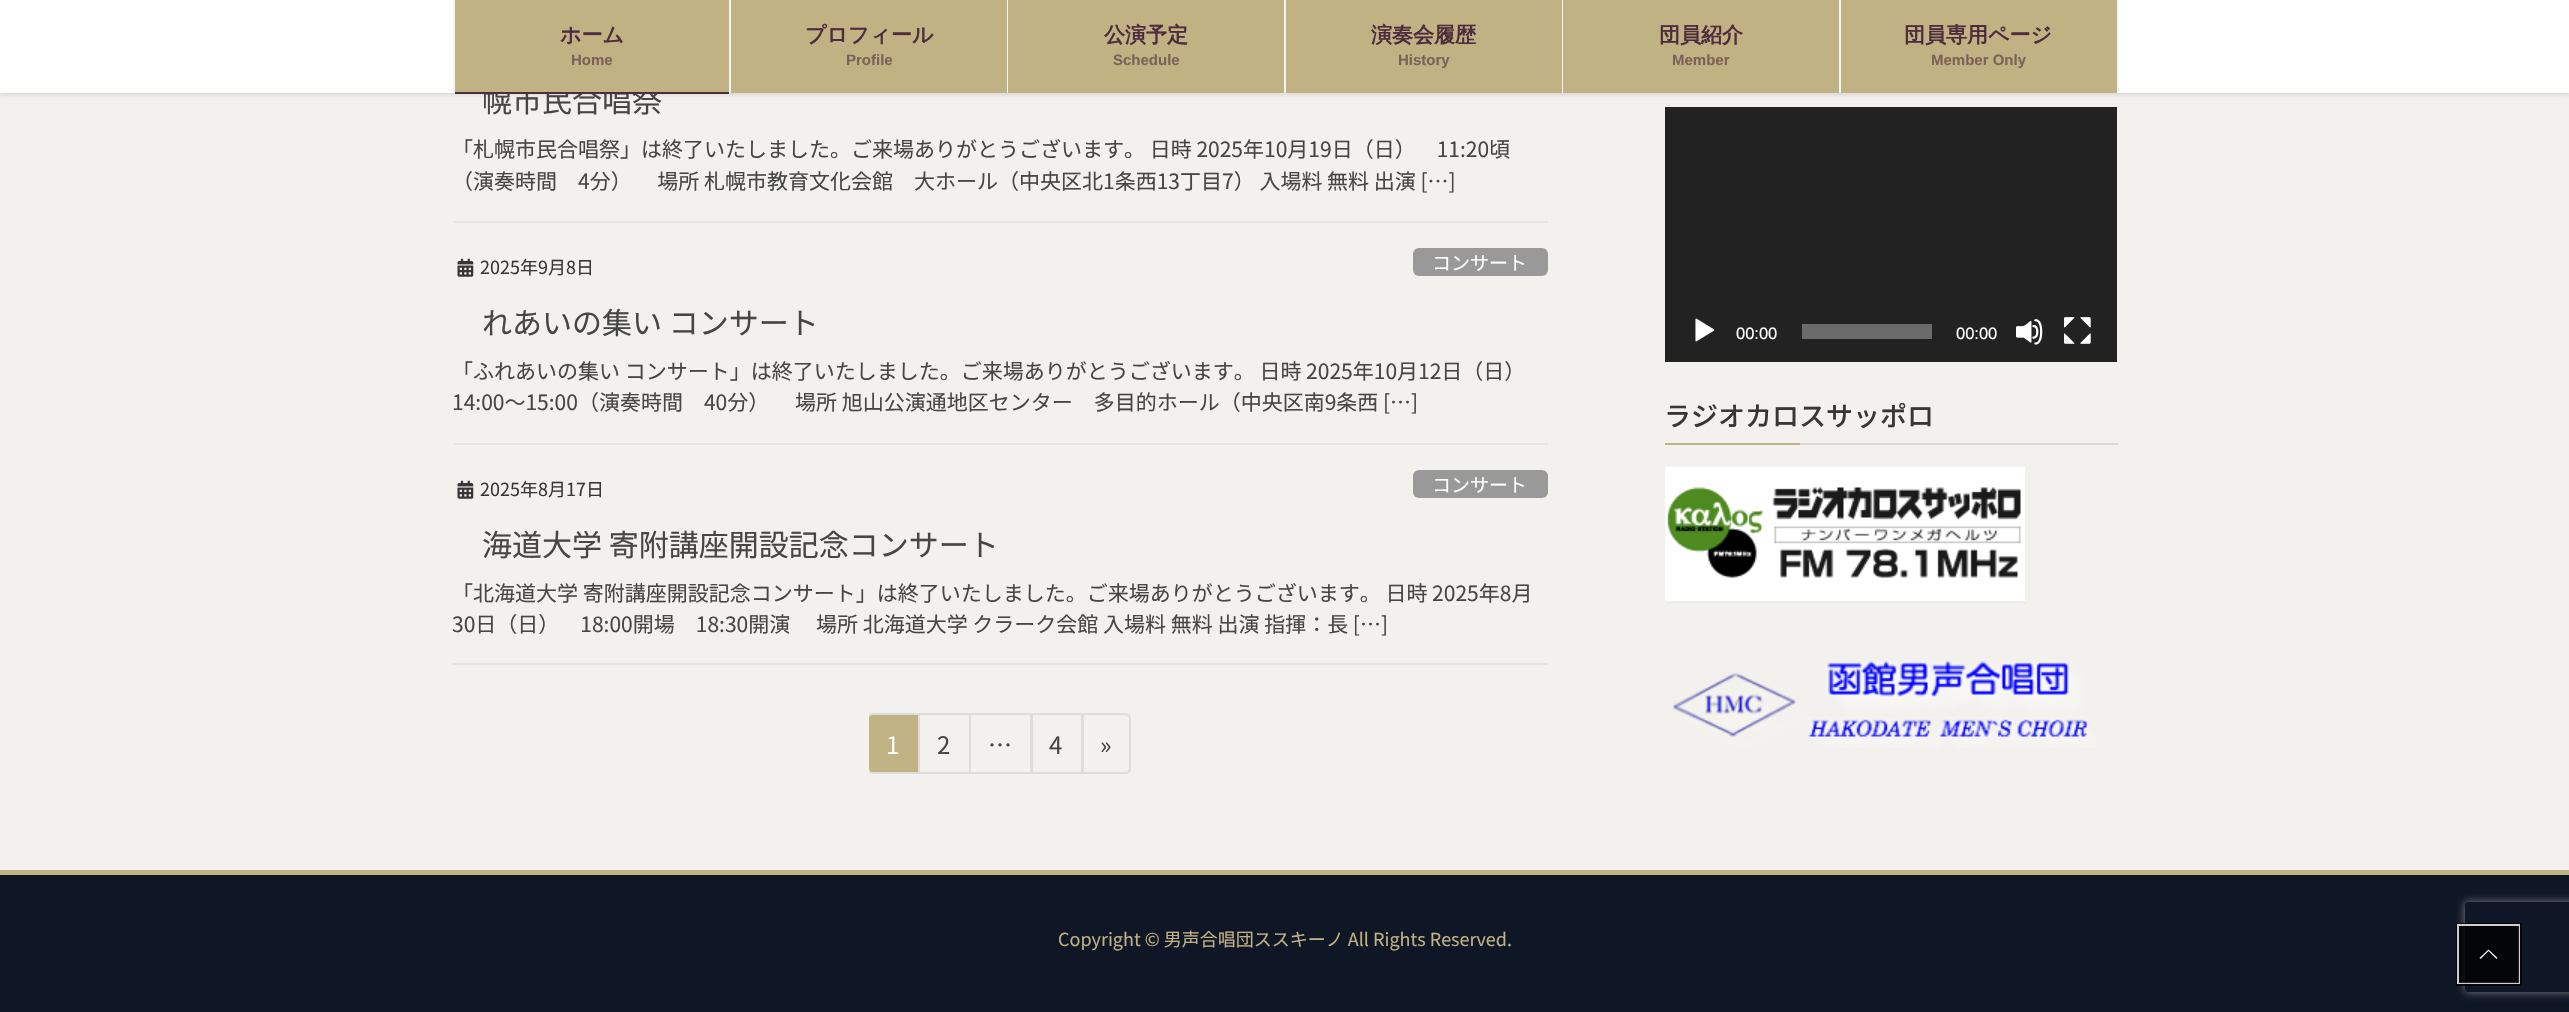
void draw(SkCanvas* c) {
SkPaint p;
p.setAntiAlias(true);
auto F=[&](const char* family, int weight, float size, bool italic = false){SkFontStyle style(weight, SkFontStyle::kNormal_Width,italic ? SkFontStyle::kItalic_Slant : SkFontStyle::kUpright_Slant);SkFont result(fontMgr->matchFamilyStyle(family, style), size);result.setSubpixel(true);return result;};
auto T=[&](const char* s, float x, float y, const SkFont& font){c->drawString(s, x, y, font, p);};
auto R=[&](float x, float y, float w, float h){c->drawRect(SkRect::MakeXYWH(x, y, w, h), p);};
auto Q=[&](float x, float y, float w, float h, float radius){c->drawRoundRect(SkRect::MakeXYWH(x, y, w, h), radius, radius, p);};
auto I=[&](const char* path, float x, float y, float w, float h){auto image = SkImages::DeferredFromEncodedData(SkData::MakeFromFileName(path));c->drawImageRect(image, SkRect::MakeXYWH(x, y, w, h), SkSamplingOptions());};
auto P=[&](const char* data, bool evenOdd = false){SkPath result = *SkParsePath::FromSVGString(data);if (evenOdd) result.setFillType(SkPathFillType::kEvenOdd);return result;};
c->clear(0xfff2f1ed);
p.setColor(0x1a000000);
p.setMaskFilter(SkMaskFilter::MakeBlur(kNormal_SkBlurStyle, 2));
c->drawRect(SkRect::MakeXYWH(0,2,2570,93),p);
p.setMaskFilter(nullptr);
auto f1 = F("Noto Sans",400,30);
p.setColor(0xff464646);
T("札",452,112,f1);
auto f2 = F("Noto Sans JP",400,30);
T("幌市民合唱祭",482,112,f2);
p.setColor(0xffffffff);
R(0,0,2569,93);
p.setColor(0xfff5f5f5);
R(453,0,2,93);
p.setColor(0xffc0b283);
R(455,0,274,92);
auto f3 = F("WenQuanYi Zen Hei",700,21);
p.setColor(0xff4d2c3d);
T("ホーム",560,42,f3);
auto f4 = F("Liberation Sans",700,15);
p.setColor(0xff7b6259);
T("Home",571,65,f4);
p.setColor(0xff4d2c3d);
R(455,92,274,2);
p.setColor(0xfff5f5f5);
R(729,0,2,93);
p.setColor(0xffc0b283);
R(731,0,276,93);
p.setColor(0xff4d2c3d);
T("プロフィール",805,42,f3);
p.setColor(0xff7b6259);
T("Profile",846,65,f4);
p.setColor(0xfff5f5f5);
R(1007,0,1,93);
p.setColor(0xffc0b283);
R(1008,0,276,93);
p.setColor(0xff4d2c3d);
T("公演予定",1104,42,f3);
p.setColor(0xff7b6259);
T("Schedule",1113,65,f4);
p.setColor(0xfff5f5f5);
R(1284,0,2,93);
p.setColor(0xffc0b283);
R(1286,0,276,93);
p.setColor(0xff4d2c3d);
T("演奏会履歴",1371,42,f3);
p.setColor(0xff7b6259);
T("History",1398,65,f4);
p.setColor(0xfff5f5f5);
R(1562,0,1,93);
p.setColor(0xffc0b283);
R(1563,0,276,93);
p.setColor(0xff4d2c3d);
T("団員紹介",1659,42,f3);
p.setColor(0xff7b6259);
T("Member",1672,65,f4);
p.setColor(0xfff5f5f5);
R(2117,0,2,93);
R(1839,0,2,93);
p.setColor(0xffc0b283);
R(1841,0,276,93);
p.setColor(0xff4d2c3d);
T("団員専用ページ",1904,42,f3);
p.setColor(0xff7b6259);
T("Member Only",1931,65,f4);
p.setColor(0xffe6e5e1);
R(453,221,1095,2);
auto f5 = F("Noto Sans JP",400,21);
p.setColor(0xff464646);
T("「札幌市民合唱祭」は終了いたしました。ご来場ありがとうございます。 日時 2025年10月19日（日）　11:20頃",452,157,f5);
T("（演奏時間　4分）　 場所 札幌市教育文化会館　大ホール（中央区北1条西13丁目7） 入場料 無料 出演 […]",452,189,f5);
p.setColor(0xffe6e5e1);
R(453,443,1095,2);
I("1.png",457,258,17,19);
auto f6 = F("Noto Sans JP",400,18);
p.setColor(0xff373737);
T("2025年9月8日",480,274,f6);
p.setColor(0xff999999);
Q(1413,248,135,28,6);
auto f7 = F("Noto Sans JP",400,19);
p.setColor(0xffffffff);
T("コンサート",1432,270,f7);
p.setColor(0xff464646);
T("ふ",452,334,f1);
T("れあいの集い コンサート",482,334,f2);
T("「ふれあいの集い コンサート」は終了いたしました。ご来場ありがとうございます。 日時 2025年10月12日（日）",452,379,f5);
T("14:00〜15:00（演奏時間　40分）　 場所 旭山公演通地区センター　多目的ホール（中央区南9条西 […]",452,410,f5);
p.setColor(0xffe6e5e1);
R(453,663,1095,2);
I("1.png",457,480,17,19);
p.setColor(0xff373737);
T("2025年8月17日",480,496,f6);
p.setColor(0xff999999);
Q(1413,470,135,28,6);
p.setColor(0xffffffff);
T("コンサート",1432,492,f7);
p.setColor(0xff464646);
T("北",452,556,f1);
T("海道大学 寄附講座開設記念コンサート",482,556,f2);
T("「北海道大学 寄附講座開設記念コンサート」は終了いたしました。ご来場ありがとうございます。 日時 2025年8月",452,601,f5);
T("30日（日）　18:00開場　18:30開演　 場所 北海道大学 クラーク会館 入場料 無料 出演 指揮：長 […]",452,632,f5);
c->save();
c->clipRect(SkRect::MakeXYWH(869,713,51,61));
p.setColor(0xffc0b283);
c->drawPath(P("M873 714h46v59h-46c-3 0-5-2-5-5v-49c0-3 2-5 5-5z"),p);
p.setStroke(true);
p.setStrokeWidth(2);
p.setColor(0xffdddddd);
c->drawPath(P("M873 714h46v59h-46c-3 0-5-2-5-5v-49c0-3 2-5 5-5z"),p);
c->restore();
auto f8 = F("Noto Sans JP",400,24);
p.setStroke(false);
p.setColor(0xffffffff);
T("1",886,754,f8);
c->save();
c->clipRect(SkRect::MakeXYWH(920,713,51,61));
p.setStroke(true);
p.setColor(0xffdddddd);
c->drawRect(SkRect::MakeXYWH(919,714,51,59),p);
c->restore();
p.setStroke(false);
p.setColor(0xff464646);
T("2",937,754,f8);
c->save();
c->clipRect(SkRect::MakeXYWH(971,713,61,61));
p.setStroke(true);
p.setColor(0xffdddddd);
c->drawRect(SkRect::MakeXYWH(970,714,61,59),p);
c->restore();
p.setStroke(false);
p.setColor(0xff464646);
T("…",988,754,f8);
c->save();
c->clipRect(SkRect::MakeXYWH(1032,713,51,61));
p.setStroke(true);
p.setColor(0xffdddddd);
c->drawRect(SkRect::MakeXYWH(1032,714,50,59),p);
c->restore();
p.setStroke(false);
p.setColor(0xff464646);
T("4",1049,754,f8);
c->save();
c->clipRect(SkRect::MakeXYWH(1083,713,48,61));
p.setStroke(true);
p.setColor(0xffdddddd);
c->drawPath(P("M1083 714h42c3 0 5 2 5 5v49c0 3-2 5-5 5h-42z"),p);
c->restore();
p.setStroke(false);
p.setColor(0xff464646);
T("»",1100,754,f8);
p.setColor(0xff222222);
R(1665,107,452,255);
I("2.png",1695,318,20,24);
auto f9 = F("Liberation Sans",400,16.5);
p.setColor(0xffffffff);
T("00:00",1736,339,f9);
p.setColor(0xff6b6b6b);
R(1802,324,130,15);
p.setColor(0xffffffff);
T("00:00",1956,339,f9);
I("3.png",2016,319,27,26);
I("4.png",2064,317,27,27);
p.setColor(0xffdad9d5);
R(1800,443,318,2);
auto f10 = F("Noto Sans JP",500,27);
p.setColor(0xff373737);
T("ラジオカロスサッポロ",1664,426,f10);
p.setColor(0xffc0b283);
R(1665,443,135,2);
I("5.png",1665,466,360,137);
I("6.png",1672,661,424,87);
p.setColor(0xff0f1626);
R(0,875,2569,137);
c->save();
c->clipPath(P("M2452 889h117v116h-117zm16 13h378c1.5 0 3 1.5 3 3v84c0 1.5-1.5 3-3 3h-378c-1.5 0-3-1.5-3-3v-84c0-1.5 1.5-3 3-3z",true),true);
p.setColor(0xff808080);
p.setMaskFilter(SkMaskFilter::MakeBlur(kNormal_SkBlurStyle, 4));
c->drawRoundRect(SkRect::MakeXYWH(2465,902,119,90),3,3,p);
p.setMaskFilter(nullptr);
c->restore();
p.setColor(0xffc0b283);
R(0,870,2569,5);
T("Copyright © 男声合唱団ススキーノ All Rights Reserved.",1058,946,f6);
p.setStroke(true);
p.setStrokeWidth(3);
p.setColor(0xcc000000);
c->drawRect(SkRect::MakeXYWH(2457.5,924.5,63,60),p);
p.setStrokeWidth(2);
p.setColor(0xccffffff);
c->drawRect(SkRect::MakeXYWH(2458,925,61,58),p);
p.setStroke(false);
p.setColor(0xcc000000);
R(2459,926,60,57);
p.setColor(0xffffffff);
c->drawPath(P("M2497.5 958l-1 1l-8-8l-8 8l-1-1l9-8.5z"),p);
}
